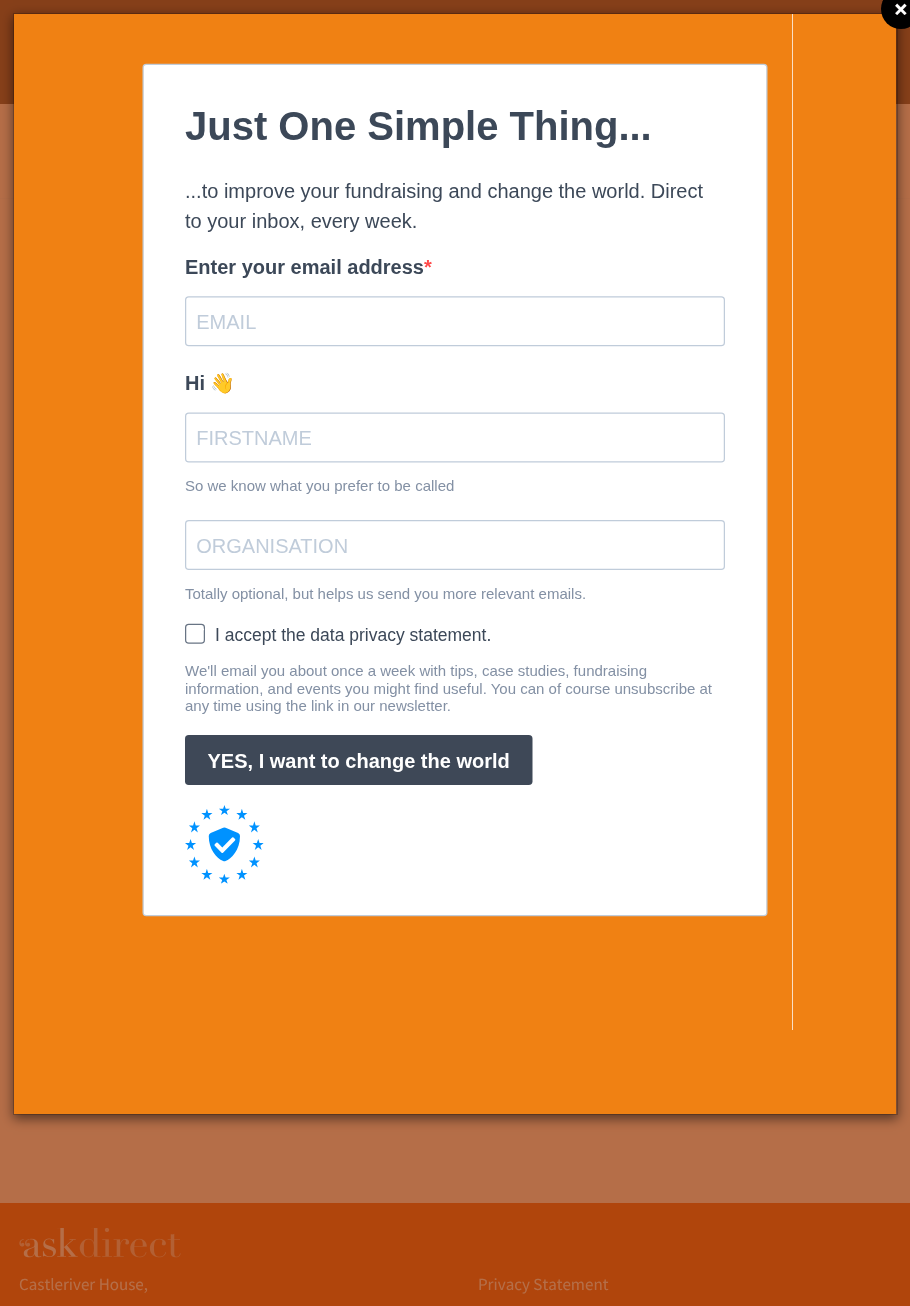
void draw(SkCanvas* c) {
SkPaint p;
p.setAntiAlias(true);
auto F=[&](const char* family, int weight, float size, bool italic = false){SkFontStyle style(weight, SkFontStyle::kNormal_Width,italic ? SkFontStyle::kItalic_Slant : SkFontStyle::kUpright_Slant);SkFont result(fontMgr->matchFamilyStyle(family, style), size);result.setSubpixel(true);return result;};
auto T=[&](const char* s, float x, float y, const SkFont& font){c->drawString(s, x, y, font, p);};
auto R=[&](float x, float y, float w, float h){c->drawRect(SkRect::MakeXYWH(x, y, w, h), p);};
auto I=[&](const char* path, float x, float y, float w, float h){auto image = SkImages::DeferredFromEncodedData(SkData::MakeFromFileName(path));c->drawImageRect(image, SkRect::MakeXYWH(x, y, w, h), SkSamplingOptions());};
c->clear(0xffb0450c);
p.setColor(0xff863f19);
R(0,0,910,104);
p.setColor(0xffb56e48);
R(0,104,910,94);
p.setColor(0xffb26d48);
R(0,198,910,1);
p.setColor(0xffb56e48);
R(0,199,910,1004);
p.setColor(0x80000000);
p.setMaskFilter(SkMaskFilter::MakeBlur(kNormal_SkBlurStyle, 5.5));
c->drawRect(SkRect::MakeXYWH(13,16,885,1103),p);
p.setMaskFilter(nullptr);
p.setColor(0xfff08113);
R(14,14,882,1100);
p.setStroke(true);
p.setStrokeWidth(1);
p.setColor(0x33000000);
c->drawRect(SkRect::MakeXYWH(13.5,13.5,884,1101),p);
p.setStroke(false);
p.setColor(0xff000000);
c->drawCircle(901,9,20,p);
auto f1 = F("Source Sans Pro",700,26);
p.setColor(0xffffffff);
T("×",894,18,f1);
I("1.png",142,14,651,1016);
I("2.png",19,1228,162,30);
auto f2 = F("Source Sans Pro",400,17);
p.setColor(0xffb56e48);
T("Castleriver House,",19,1290,f2);
T("Privacy Statement",478,1290,f2);
}
